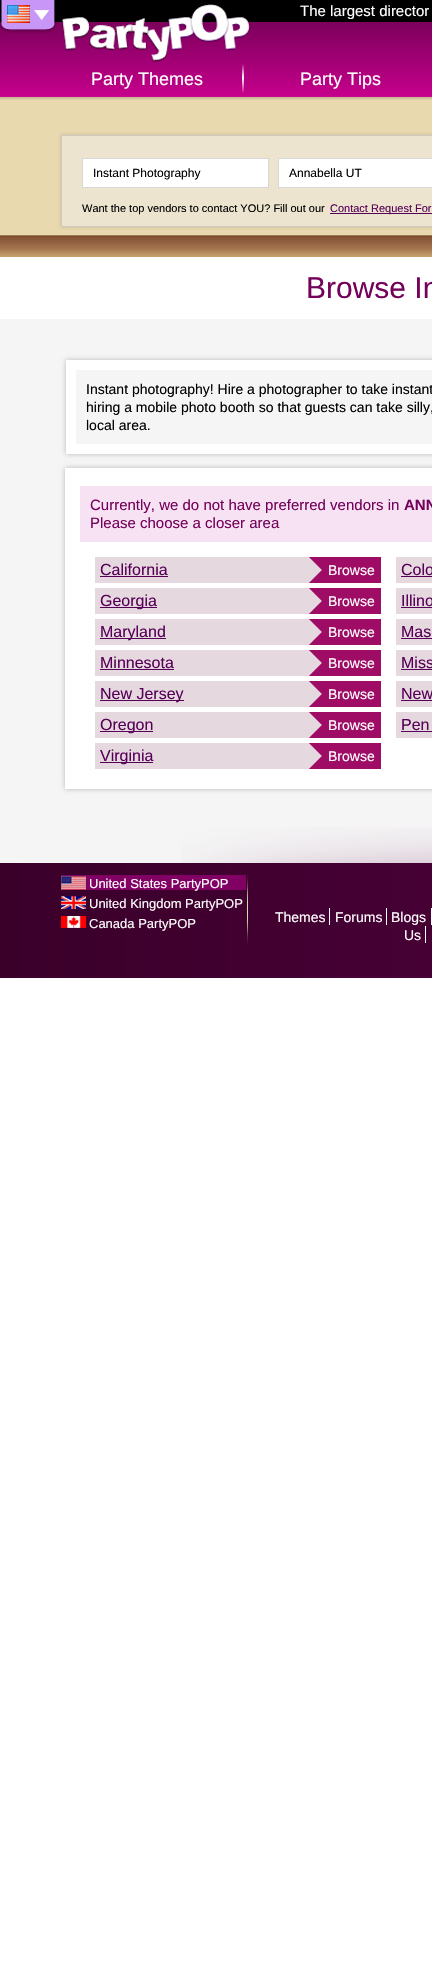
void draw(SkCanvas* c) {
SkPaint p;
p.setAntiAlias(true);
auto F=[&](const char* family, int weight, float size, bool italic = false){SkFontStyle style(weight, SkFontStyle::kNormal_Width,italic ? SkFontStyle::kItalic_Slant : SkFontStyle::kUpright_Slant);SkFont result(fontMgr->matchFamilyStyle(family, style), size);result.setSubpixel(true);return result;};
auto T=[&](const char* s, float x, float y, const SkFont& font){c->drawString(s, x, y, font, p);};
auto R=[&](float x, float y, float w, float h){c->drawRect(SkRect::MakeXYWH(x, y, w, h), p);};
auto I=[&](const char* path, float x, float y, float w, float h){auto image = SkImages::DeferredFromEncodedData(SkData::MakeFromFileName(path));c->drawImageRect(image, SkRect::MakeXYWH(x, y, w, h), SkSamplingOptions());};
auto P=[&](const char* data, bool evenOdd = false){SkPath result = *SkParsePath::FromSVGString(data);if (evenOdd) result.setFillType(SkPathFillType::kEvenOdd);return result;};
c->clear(0xffffffff);
p.setColor(0xffe9d9af);
R(0,96,432,139);
I("1.png",0,0,432,257);
I("2.png",61,4,189,59);
I("3.png",0,0,59,33);
auto f1 = F("Liberation Sans",400,15);
p.setColor(0xffffffff);
T("The largest director",300,16,f1);
I("4.png",242,64,2,29);
auto f2 = F("Liberation Sans",400,18);
T("Party Themes",91,85,f2);
T("Party Tips",300,85,f2);
p.setColor(0x2b000000);
p.setMaskFilter(SkMaskFilter::MakeBlur(kNormal_SkBlurStyle, 1.5));
c->drawRect(SkRect::MakeXYWH(61,135,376,92),p);
p.setMaskFilter(nullptr);
p.setColor(0xffece4cf);
c->drawRect(SkRect::MakeXYWH(61.5,135.5,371,91),p);
p.setStroke(true);
p.setStrokeWidth(1);
p.setColor(0xffd1ccc2);
c->drawRect(SkRect::MakeXYWH(61.5,135.5,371,91),p);
p.setStroke(false);
p.setColor(0xffffffff);
c->drawRect(SkRect::MakeXYWH(82.5,158.5,186,29),p);
p.setStroke(true);
p.setColor(0xffd7d7d7);
c->drawRect(SkRect::MakeXYWH(82.5,158.5,186,29),p);
auto f3 = F("Liberation Sans",400,12);
p.setStroke(false);
p.setColor(0xff000000);
T("Instant Photography",93,177,f3);
p.setColor(0xffffffff);
c->drawRect(SkRect::MakeXYWH(278.5,158.5,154,29),p);
p.setStroke(true);
p.setColor(0xffd7d7d7);
c->drawRect(SkRect::MakeXYWH(278.5,158.5,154,29),p);
p.setStroke(false);
p.setColor(0xff000000);
T("Annabella UT",289,177,f3);
auto f4 = F("Liberation Sans",400,11);
T("Want the top vendors to contact YOU? Fill out our",82,212,f4);
p.setColor(0xff570057);
R(330,213,102,1);
T("Contact Request For",330,212,f4);
p.setColor(0xfff5f5f5);
R(0,319,432,544);
auto f5 = F("Liberation Sans",400,30);
p.setColor(0xff74015a);
T("Browse In",306,298,f5);
I("5.png",181,827,251,36);
c->save();
c->clipPath(P("M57 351h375v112h-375zm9 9h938v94h-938z",true),true);
p.setColor(0x40000000);
p.setMaskFilter(SkMaskFilter::MakeBlur(kNormal_SkBlurStyle, 2.5));
c->drawRect(SkRect::MakeXYWH(66,360,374,94),p);
p.setMaskFilter(nullptr);
c->restore();
p.setStroke(true);
p.setStrokeWidth(10);
p.setColor(0xffffffff);
c->drawRect(SkRect::MakeXYWH(71,365,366,84),p);
auto f6 = F("Liberation Sans",400,14);
p.setStroke(false);
p.setColor(0xff000000);
T("Instant photography! Hire a photographer to take instant",86,394,f6);
T("hiring a mobile photo booth so that guests can take silly,",86,412,f6);
T("local area.",86,430,f6);
p.setColor(0x40000000);
p.setMaskFilter(SkMaskFilter::MakeBlur(kNormal_SkBlurStyle, 2.5));
c->drawRect(SkRect::MakeXYWH(65,468,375,321),p);
p.setMaskFilter(nullptr);
p.setColor(0xffffffff);
R(65,468,367,321);
p.setColor(0xfff7e2f3);
R(80,486,352,56);
p.setColor(0xff74015a);
T("Currently, we do not have preferred vendors in",90,510,f1);
auto f7 = F("Liberation Sans",700,15);
T("ANN",404,510,f7);
T("Please choose a closer area",90,528,f1);
p.setColor(0xffe6d8df);
R(95,557,227,26);
I("6.png",309,557,13,26);
auto f8 = F("Liberation Sans",400,16);
p.setColor(0xff570057);
T("California",100,575,f8);
R(100,576,68,1);
p.setColor(0xff9e0c66);
R(322,557,59,26);
p.setColor(0xffffffff);
T("Browse",328,575,f6);
p.setColor(0xffe6d8df);
R(396,557,36,26);
p.setColor(0xff570057);
T("Colo",401,575,f8);
R(401,576,31,1);
p.setColor(0xffe6d8df);
R(95,588,227,26);
I("6.png",309,588,13,26);
p.setColor(0xff570057);
R(100,607,57,1);
T("Georgia",100,606,f8);
p.setColor(0xff9e0c66);
R(322,588,59,26);
p.setColor(0xffffffff);
T("Browse",328,606,f6);
p.setColor(0xffe6d8df);
R(396,588,36,26);
p.setColor(0xff570057);
T("Illino",401,606,f8);
R(401,607,31,1);
p.setColor(0xffe6d8df);
R(95,619,227,26);
I("6.png",309,619,13,26);
p.setColor(0xff570057);
R(100,638,66,1);
T("Maryland",100,637,f8);
p.setColor(0xff9e0c66);
R(322,619,59,26);
p.setColor(0xffffffff);
T("Browse",328,637,f6);
p.setColor(0xffe6d8df);
R(396,619,36,26);
p.setColor(0xff570057);
T("Mas",401,637,f8);
R(401,638,31,1);
p.setColor(0xffe6d8df);
R(95,650,227,26);
I("6.png",309,650,13,26);
p.setColor(0xff570057);
T("Minnesota",100,668,f8);
R(100,669,74,1);
p.setColor(0xff9e0c66);
R(322,650,59,26);
p.setColor(0xffffffff);
T("Browse",328,668,f6);
p.setColor(0xffe6d8df);
R(396,650,36,26);
p.setColor(0xff570057);
T("Miss",401,668,f8);
R(401,669,31,1);
p.setColor(0xffe6d8df);
R(95,681,227,26);
I("6.png",309,681,13,26);
p.setColor(0xff570057);
R(100,700,84,1);
T("New Jersey",100,699,f8);
p.setColor(0xff9e0c66);
R(322,681,59,26);
p.setColor(0xffffffff);
T("Browse",328,699,f6);
p.setColor(0xffe6d8df);
R(396,681,36,26);
p.setColor(0xff570057);
T("New",401,699,f8);
R(401,700,31,1);
p.setColor(0xffe6d8df);
R(95,712,227,26);
I("6.png",309,712,13,26);
p.setColor(0xff570057);
R(100,731,53,1);
T("Oregon",100,730,f8);
p.setColor(0xff9e0c66);
R(322,712,59,26);
p.setColor(0xffffffff);
T("Browse",328,730,f6);
p.setColor(0xffe6d8df);
R(396,712,36,26);
p.setColor(0xff570057);
T("Pen",401,730,f8);
R(401,731,31,1);
p.setColor(0xffe6d8df);
R(95,743,227,26);
I("6.png",309,743,13,26);
p.setColor(0xff570057);
R(100,762,53,1);
T("Virginia",100,761,f8);
p.setColor(0xff9e0c66);
R(322,743,59,26);
p.setColor(0xffffffff);
T("Browse",328,761,f6);
{
const SkColor colors[] = {0xff580044,0xff3a002a};
const float stops[] = {0,1};
const SkPoint ends[] = {{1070,921}, {0,921}};
p.setShader(SkGradientShader::MakeLinear(ends, colors, stops, 2, SkTileMode::kClamp));
p.setAlpha(255);
}
R(0,863,432,115);
I("7.png",247,875,1,70);
p.setShader(nullptr);
p.setColor(0xff810064);
R(61,875,185,15);
I("8.png",61,876,25,14);
auto f9 = F("Liberation Sans",400,13);
p.setColor(0xffffffff);
T("United States PartyPOP",89,888,f9);
I("9.png",61,896,25,13);
T("United Kingdom PartyPOP",89,908,f9);
I("10.png",61,916,26,12);
T("Canada PartyPOP",89,928,f9);
T("Themes",275,922,f6);
R(329,908,1,17);
T("Forums",335,922,f6);
R(386,908,1,17);
T("Blogs",391,922,f6);
R(431,908,1,17);
T("Us",404,940,f6);
R(425,926,1,17);
}
